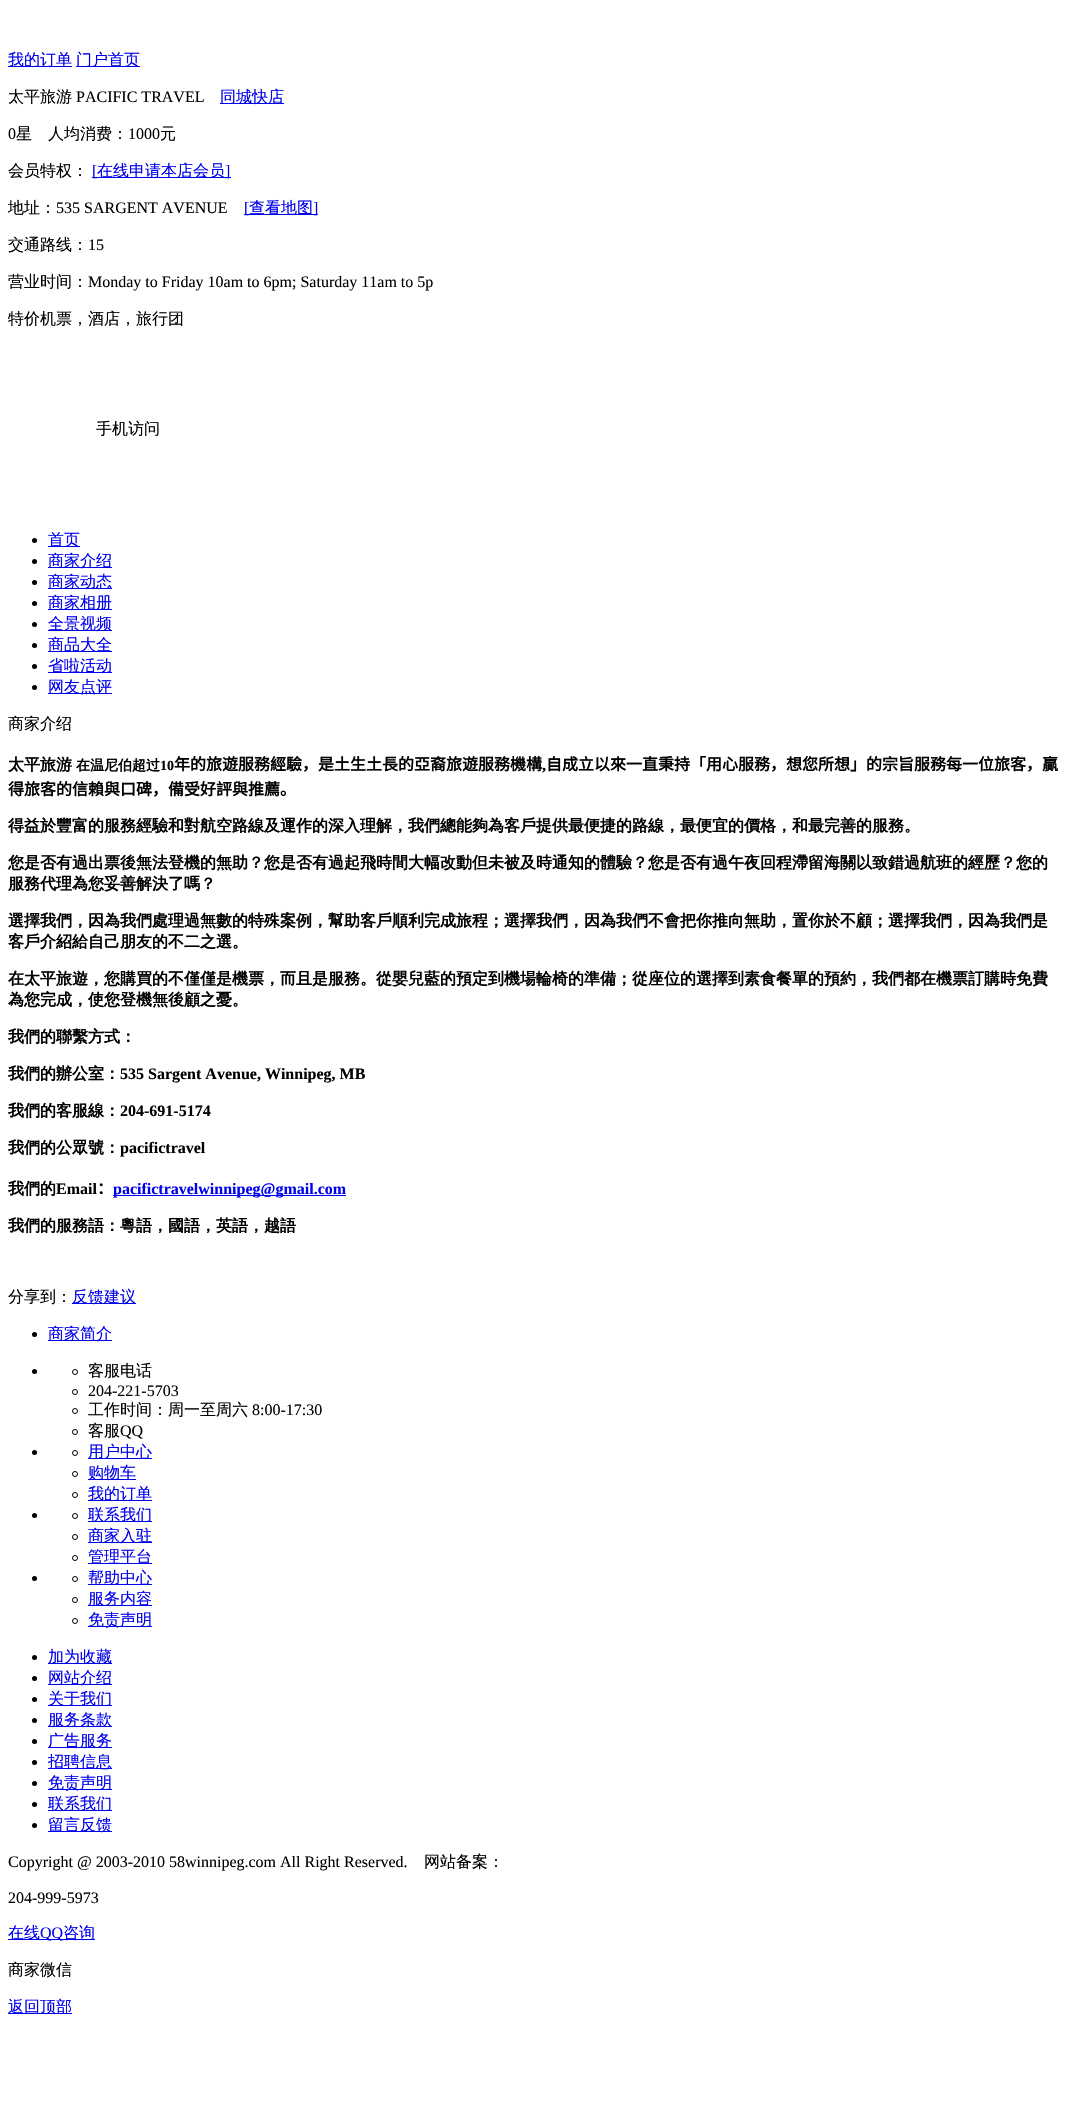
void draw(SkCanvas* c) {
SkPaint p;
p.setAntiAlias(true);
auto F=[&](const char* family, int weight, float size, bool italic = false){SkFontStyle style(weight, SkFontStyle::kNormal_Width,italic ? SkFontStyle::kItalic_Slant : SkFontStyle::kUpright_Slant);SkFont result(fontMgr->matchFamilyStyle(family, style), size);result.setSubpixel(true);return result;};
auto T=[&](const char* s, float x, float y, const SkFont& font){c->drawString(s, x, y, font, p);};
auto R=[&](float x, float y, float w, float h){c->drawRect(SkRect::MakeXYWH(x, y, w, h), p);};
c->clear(0xffffffff);
p.setColor(0xff0000ee);
R(8,66,64,1);
auto f1 = F("WenQuanYi Zen Hei",500,16);
T("我的订单",8,65,f1);
R(76,66,64,1);
T("门户首页",76,65,f1);
p.setColor(0xff000000);
T("太平旅游",8,102,f1);
auto f2 = F("Liberation Serif",400,16);
T("PACIFIC TRAVEL",76,102,f2);
p.setColor(0xff0000ee);
R(220,103,64,1);
T("同城快店",220,102,f1);
p.setColor(0xff000000);
T("0",8,139,f2);
T("星",16,139,f1);
T("人均消费：",48,139,f1);
T("1000",128,139,f2);
T("元",160,139,f1);
T("会员特权：",8,176,f1);
p.setColor(0xff0000ee);
R(92,177,139,1);
T("[",92,176,f2);
T("在线申请本店会员",97,176,f1);
T("]",225,176,f2);
p.setColor(0xff000000);
T("地址：",8,213,f1);
T("535 SARGENT AVENUE",56,213,f2);
p.setColor(0xff0000ee);
R(244,214,74,1);
T("[",244,213,f2);
T("查看地图",249,213,f1);
T("]",313,213,f2);
p.setColor(0xff000000);
T("交通路线：",8,250,f1);
T("15",88,250,f2);
T("营业时间：",8,287,f1);
T("Monday to Friday 10am to 6pm; Saturday 11am to 5p",88,287,f2);
T("特价机票，酒店，旅行团",8,324,f1);
T("手机访问",96,434,f1);
c->drawCircle(34.5,540.5,2.5,p);
p.setColor(0xff0000ee);
R(48,546,32,1);
T("首页",48,545,f1);
p.setColor(0xff000000);
c->drawCircle(34.5,561.5,2.5,p);
p.setColor(0xff0000ee);
R(48,567,64,1);
T("商家介绍",48,566,f1);
p.setColor(0xff000000);
c->drawCircle(34.5,582.5,2.5,p);
p.setColor(0xff0000ee);
R(48,588,64,1);
T("商家动态",48,587,f1);
p.setColor(0xff000000);
c->drawCircle(34.5,603.5,2.5,p);
p.setColor(0xff0000ee);
R(48,609,64,1);
T("商家相册",48,608,f1);
p.setColor(0xff000000);
c->drawCircle(34.5,624.5,2.5,p);
p.setColor(0xff0000ee);
R(48,630,64,1);
T("全景视频",48,629,f1);
p.setColor(0xff000000);
c->drawCircle(34.5,645.5,2.5,p);
p.setColor(0xff0000ee);
R(48,651,64,1);
T("商品大全",48,650,f1);
p.setColor(0xff000000);
c->drawCircle(34.5,666.5,2.5,p);
p.setColor(0xff0000ee);
R(48,672,64,1);
T("省啦活动",48,671,f1);
p.setColor(0xff000000);
c->drawCircle(34.5,687.5,2.5,p);
p.setColor(0xff0000ee);
R(48,693,64,1);
T("网友点评",48,692,f1);
p.setColor(0xff000000);
T("商家介绍",8,729,f1);
auto f3 = F("WenQuanYi Zen Hei",700,16);
T("太平旅游",8,770,f3);
auto f4 = F("WenQuanYi Zen Hei",700,14);
T("在温尼伯超过",76,770,f4);
auto f5 = F("Liberation Serif",700,14);
T("10",160,770,f5);
auto f6 = F("Noto Sans CJK SC",700,16);
T("年的旅遊服務經驗，是土生土長的亞裔旅遊服務機構",174,770,f6);
auto f7 = F("Liberation Serif",700,16);
T(",",542,770,f7);
T("自成立以來一直秉持「用心服務，想您所想」的宗旨服務每一位旅客，贏",546,770,f6);
T("得旅客的信賴與口碑，備受好評與推薦。",8,795,f6);
T("得益於豐富的服務經驗和對航空路線及運作的深入理解，我們總能夠為客戶提供最便捷的路線，最便宜的價格，和最完善的服務。",8,831,f3);
T("您是否有過出票後無法登機的無助？您是否有過起飛時間大幅改動但未被及時通知的體驗？您是否有過午夜回程滯留海關以致錯過航班的經歷？您的",8,868,f3);
T("服務代理為您妥善解決了嗎？",8,889,f3);
T("選擇我們，因為我們處理過無數的特殊案例，幫助客戶順利完成旅程；選擇我們，因為我們不會把你推向無助，置你於不顧；選擇我們，因為我們是",8,926,f3);
T("客戶介紹給自己朋友的不二之選。",8,947,f3);
T("在太平旅遊，您購買的不僅僅是機票，而且是服務。從嬰兒藍的預定到機場輪椅的準備；從座位的選擇到素食餐單的預約，我們都在機票訂購時免費",8,984,f3);
T("為您完成，使您登機無後顧之憂。",8,1005,f3);
T("我們的聯繫方式：",8,1042,f3);
T("我們的辦公室：",8,1079,f3);
T("535 Sargent Avenue, Winnipeg, MB",120,1079,f7);
T("我們的客服線：",8,1116,f3);
T("204-691-5174",120,1116,f7);
T("我們的公眾號：",8,1153,f3);
T("pacifictravel",120,1153,f7);
T("我們的",8,1194,f3);
T("Email",56,1194,f7);
T("：",97,1194,f6);
p.setColor(0xff0000ee);
R(113,1195,233,1);
T("pacifictravelwinnipeg@gmail.com",113,1194,f7);
p.setColor(0xff000000);
T("我們的服務語：粵語，國語，英語，越語",8,1231,f3);
T("分享到：",8,1302,f1);
p.setColor(0xff0000ee);
R(72,1303,64,1);
T("反馈建议",72,1302,f1);
p.setColor(0xff000000);
c->drawCircle(34.5,1334.5,2.5,p);
p.setColor(0xff0000ee);
R(48,1340,64,1);
T("商家简介",48,1339,f1);
p.setColor(0xff000000);
c->drawCircle(34.5,1371.5,2.5,p);
p.setStroke(true);
p.setStrokeWidth(1);
c->drawCircle(75,1372,2.5,p);
p.setStroke(false);
T("客服电话",88,1376,f1);
p.setStroke(true);
c->drawCircle(75,1392,2.5,p);
p.setStroke(false);
T("204-221-5703",88,1396,f2);
p.setStroke(true);
c->drawCircle(75,1411,2.5,p);
p.setStroke(false);
T("工作时间：周一至周六",88,1415,f1);
T("8:00-17:30",252,1415,f2);
p.setStroke(true);
c->drawCircle(75,1432,2.5,p);
p.setStroke(false);
T("客服",88,1436,f1);
T("QQ",120,1436,f2);
c->drawCircle(34.5,1452.5,2.5,p);
p.setStroke(true);
c->drawCircle(75,1453,2.5,p);
p.setStroke(false);
p.setColor(0xff0000ee);
R(88,1458,64,1);
T("用户中心",88,1457,f1);
p.setStroke(true);
p.setColor(0xff000000);
c->drawCircle(75,1474,2.5,p);
p.setStroke(false);
p.setColor(0xff0000ee);
R(88,1479,48,1);
T("购物车",88,1478,f1);
p.setStroke(true);
p.setColor(0xff000000);
c->drawCircle(75,1495,2.5,p);
p.setStroke(false);
p.setColor(0xff0000ee);
R(88,1500,64,1);
T("我的订单",88,1499,f1);
p.setColor(0xff000000);
c->drawCircle(34.5,1515.5,2.5,p);
p.setStroke(true);
c->drawCircle(75,1516,2.5,p);
p.setStroke(false);
p.setColor(0xff0000ee);
R(88,1521,64,1);
T("联系我们",88,1520,f1);
p.setStroke(true);
p.setColor(0xff000000);
c->drawCircle(75,1537,2.5,p);
p.setStroke(false);
p.setColor(0xff0000ee);
R(88,1542,64,1);
T("商家入驻",88,1541,f1);
p.setStroke(true);
p.setColor(0xff000000);
c->drawCircle(75,1558,2.5,p);
p.setStroke(false);
p.setColor(0xff0000ee);
R(88,1563,64,1);
T("管理平台",88,1562,f1);
p.setColor(0xff000000);
c->drawCircle(34.5,1578.5,2.5,p);
p.setStroke(true);
c->drawCircle(75,1579,2.5,p);
p.setStroke(false);
p.setColor(0xff0000ee);
R(88,1584,64,1);
T("帮助中心",88,1583,f1);
p.setStroke(true);
p.setColor(0xff000000);
c->drawCircle(75,1600,2.5,p);
p.setStroke(false);
p.setColor(0xff0000ee);
R(88,1605,64,1);
T("服务内容",88,1604,f1);
p.setStroke(true);
p.setColor(0xff000000);
c->drawCircle(75,1621,2.5,p);
p.setStroke(false);
p.setColor(0xff0000ee);
R(88,1626,64,1);
T("免责声明",88,1625,f1);
p.setColor(0xff000000);
c->drawCircle(34.5,1657.5,2.5,p);
p.setColor(0xff0000ee);
R(48,1663,64,1);
T("加为收藏",48,1662,f1);
p.setColor(0xff000000);
c->drawCircle(34.5,1678.5,2.5,p);
p.setColor(0xff0000ee);
R(48,1684,64,1);
T("网站介绍",48,1683,f1);
p.setColor(0xff000000);
c->drawCircle(34.5,1699.5,2.5,p);
p.setColor(0xff0000ee);
R(48,1705,64,1);
T("关于我们",48,1704,f1);
p.setColor(0xff000000);
c->drawCircle(34.5,1720.5,2.5,p);
p.setColor(0xff0000ee);
R(48,1726,64,1);
T("服务条款",48,1725,f1);
p.setColor(0xff000000);
c->drawCircle(34.5,1741.5,2.5,p);
p.setColor(0xff0000ee);
R(48,1747,64,1);
T("广告服务",48,1746,f1);
p.setColor(0xff000000);
c->drawCircle(34.5,1762.5,2.5,p);
p.setColor(0xff0000ee);
R(48,1768,64,1);
T("招聘信息",48,1767,f1);
p.setColor(0xff000000);
c->drawCircle(34.5,1783.5,2.5,p);
p.setColor(0xff0000ee);
R(48,1789,64,1);
T("免责声明",48,1788,f1);
p.setColor(0xff000000);
c->drawCircle(34.5,1804.5,2.5,p);
p.setColor(0xff0000ee);
R(48,1810,64,1);
T("联系我们",48,1809,f1);
p.setColor(0xff000000);
c->drawCircle(34.5,1825.5,2.5,p);
p.setColor(0xff0000ee);
R(48,1831,64,1);
T("留言反馈",48,1830,f1);
p.setColor(0xff000000);
T("Copyright @ 2003-2010 58winnipeg.com All Right Reserved.",8,1867,f2);
T("网站备案：",424,1867,f1);
T("204-999-5973",8,1903,f2);
p.setColor(0xff0000ee);
R(8,1939,87,1);
T("在线",8,1938,f1);
T("QQ",40,1938,f2);
T("咨询",63,1938,f1);
p.setColor(0xff000000);
T("商家微信",8,1975,f1);
p.setColor(0xff0000ee);
R(8,2013,64,1);
T("返回顶部",8,2012,f1);
}
